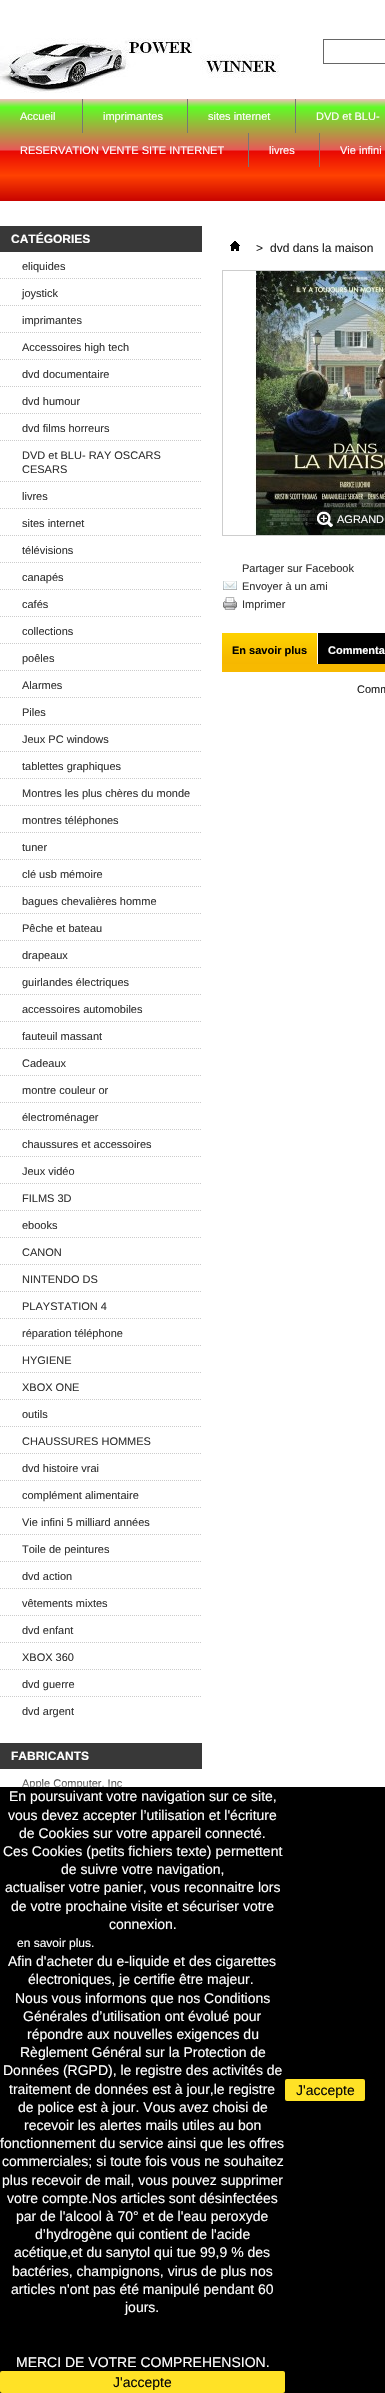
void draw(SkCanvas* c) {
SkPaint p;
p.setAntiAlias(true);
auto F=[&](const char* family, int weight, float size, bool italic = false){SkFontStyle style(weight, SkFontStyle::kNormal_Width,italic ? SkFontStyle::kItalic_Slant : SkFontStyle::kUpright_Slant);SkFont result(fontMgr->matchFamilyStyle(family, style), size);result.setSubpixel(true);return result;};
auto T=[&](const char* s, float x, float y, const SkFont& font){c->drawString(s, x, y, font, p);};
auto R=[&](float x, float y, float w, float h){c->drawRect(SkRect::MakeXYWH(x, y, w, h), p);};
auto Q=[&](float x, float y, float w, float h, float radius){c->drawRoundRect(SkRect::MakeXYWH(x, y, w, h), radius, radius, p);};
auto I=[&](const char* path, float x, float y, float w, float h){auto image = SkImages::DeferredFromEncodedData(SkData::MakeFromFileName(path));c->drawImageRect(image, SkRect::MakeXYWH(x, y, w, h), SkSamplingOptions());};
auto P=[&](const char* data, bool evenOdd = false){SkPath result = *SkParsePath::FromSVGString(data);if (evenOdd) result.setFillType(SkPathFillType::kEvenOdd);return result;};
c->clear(0xffffffff);
I("1.png",0,38,280,55);
p.setColor(0xff666666);
R(323,39,62,1);
R(323,63,62,1);
R(323,39,1,25);
{
const SkColor colors[] = {0xfff3bdbd,0xff5ffc26,0xffe85858,0xffe90703,0xffff4101,0xffc80300};
const float stops[] = {0,.08,.5,.51,.75,1};
const SkPoint ends[] = {{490,99}, {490,201}};
p.setShader(SkGradientShader::MakeLinear(ends, colors, stops, 6, SkTileMode::kClamp));
p.setAlpha(255);
}
R(0,99,385,102);
p.setShader(nullptr);
p.setColor(0xff777777);
R(82,99,1,34);
auto f1 = F("Liberation Sans",400,11);
p.setColor(0xffffffff);
T("Accueil",20,120,f1);
p.setColor(0xff777777);
R(187,99,1,34);
p.setColor(0xffffffff);
T("imprimantes",103,120,f1);
p.setColor(0xff777777);
R(295,99,1,34);
p.setColor(0xffffffff);
T("sites internet",208,120,f1);
T("DVD et BLU-",316,120,f1);
p.setColor(0xff777777);
R(248,133,1,34);
p.setColor(0xffffffff);
T("RESERVATION VENTE SITE INTERNET",20,154,f1);
p.setColor(0xff777777);
R(319,133,1,34);
p.setColor(0xffffffff);
T("livres",269,154,f1);
T("Vie infini",340,154,f1);
p.setColor(0xff383838);
R(0,226,202,26);
auto f2 = F("Liberation Sans",700,12);
p.setColor(0xffffffff);
T("CATÉGORIES",11,243,f2);
p.setStroke(true);
p.setStrokeWidth(1);
p.setColor(0xffcccccc);
p.setPathEffect(SkDashPathEffect::Make({{1,1}}, 0));
c->drawPath(P("M0 278.5h202"),p);
p.setPathEffect(nullptr);
p.setStroke(false);
p.setColor(0xff333333);
T("eliquides",22,270,f1);
p.setStroke(true);
p.setColor(0xffcccccc);
p.setPathEffect(SkDashPathEffect::Make({{1,1}}, 0));
c->drawPath(P("M0 305.5h202"),p);
p.setPathEffect(nullptr);
p.setStroke(false);
p.setColor(0xff333333);
T("joystick",22,297,f1);
p.setStroke(true);
p.setColor(0xffcccccc);
p.setPathEffect(SkDashPathEffect::Make({{1,1}}, 0));
c->drawPath(P("M0 332.5h202"),p);
p.setPathEffect(nullptr);
p.setStroke(false);
p.setColor(0xff333333);
T("imprimantes",22,324,f1);
p.setStroke(true);
p.setColor(0xffcccccc);
p.setPathEffect(SkDashPathEffect::Make({{1,1}}, 0));
c->drawPath(P("M0 359.5h202"),p);
p.setPathEffect(nullptr);
p.setStroke(false);
p.setColor(0xff333333);
T("Accessoires high tech",22,351,f1);
p.setStroke(true);
p.setColor(0xffcccccc);
p.setPathEffect(SkDashPathEffect::Make({{1,1}}, 0));
c->drawPath(P("M0 386.5h202"),p);
p.setPathEffect(nullptr);
p.setStroke(false);
p.setColor(0xff333333);
T("dvd documentaire",22,378,f1);
p.setStroke(true);
p.setColor(0xffcccccc);
p.setPathEffect(SkDashPathEffect::Make({{1,1}}, 0));
c->drawPath(P("M0 413.5h202"),p);
p.setPathEffect(nullptr);
p.setStroke(false);
p.setColor(0xff333333);
T("dvd humour",22,405,f1);
p.setStroke(true);
p.setColor(0xffcccccc);
p.setPathEffect(SkDashPathEffect::Make({{1,1}}, 0));
c->drawPath(P("M0 440.5h202"),p);
p.setPathEffect(nullptr);
p.setStroke(false);
p.setColor(0xff333333);
T("dvd films horreurs",22,432,f1);
p.setStroke(true);
p.setColor(0xffcccccc);
p.setPathEffect(SkDashPathEffect::Make({{1,1}}, 0));
c->drawPath(P("M0 481.5h202"),p);
p.setPathEffect(nullptr);
p.setStroke(false);
p.setColor(0xff333333);
T("DVD et BLU- RAY OSCARS",22,459,f1);
T("CESARS",22,473,f1);
p.setStroke(true);
p.setColor(0xffcccccc);
p.setPathEffect(SkDashPathEffect::Make({{1,1}}, 0));
c->drawPath(P("M0 508.5h202"),p);
p.setPathEffect(nullptr);
p.setStroke(false);
p.setColor(0xff333333);
T("livres",22,500,f1);
p.setStroke(true);
p.setColor(0xffcccccc);
p.setPathEffect(SkDashPathEffect::Make({{1,1}}, 0));
c->drawPath(P("M0 535.5h202"),p);
p.setPathEffect(nullptr);
p.setStroke(false);
p.setColor(0xff333333);
T("sites internet",22,527,f1);
p.setStroke(true);
p.setColor(0xffcccccc);
p.setPathEffect(SkDashPathEffect::Make({{1,1}}, 0));
c->drawPath(P("M0 562.5h202"),p);
p.setPathEffect(nullptr);
p.setStroke(false);
p.setColor(0xff333333);
T("télévisions",22,554,f1);
p.setStroke(true);
p.setColor(0xffcccccc);
p.setPathEffect(SkDashPathEffect::Make({{1,1}}, 0));
c->drawPath(P("M0 589.5h202"),p);
p.setPathEffect(nullptr);
p.setStroke(false);
p.setColor(0xff333333);
T("canapés",22,581,f1);
p.setStroke(true);
p.setColor(0xffcccccc);
p.setPathEffect(SkDashPathEffect::Make({{1,1}}, 0));
c->drawPath(P("M0 616.5h202"),p);
p.setPathEffect(nullptr);
p.setStroke(false);
p.setColor(0xff333333);
T("cafés",22,608,f1);
p.setStroke(true);
p.setColor(0xffcccccc);
p.setPathEffect(SkDashPathEffect::Make({{1,1}}, 0));
c->drawPath(P("M0 643.5h202"),p);
p.setPathEffect(nullptr);
p.setStroke(false);
p.setColor(0xff333333);
T("collections",22,635,f1);
p.setStroke(true);
p.setColor(0xffcccccc);
p.setPathEffect(SkDashPathEffect::Make({{1,1}}, 0));
c->drawPath(P("M0 670.5h202"),p);
p.setPathEffect(nullptr);
p.setStroke(false);
p.setColor(0xff333333);
T("poêles",22,662,f1);
p.setStroke(true);
p.setColor(0xffcccccc);
p.setPathEffect(SkDashPathEffect::Make({{1,1}}, 0));
c->drawPath(P("M0 697.5h202"),p);
p.setPathEffect(nullptr);
p.setStroke(false);
p.setColor(0xff333333);
T("Alarmes",22,689,f1);
p.setStroke(true);
p.setColor(0xffcccccc);
p.setPathEffect(SkDashPathEffect::Make({{1,1}}, 0));
c->drawPath(P("M0 724.5h202"),p);
p.setPathEffect(nullptr);
p.setStroke(false);
p.setColor(0xff333333);
T("Piles",22,716,f1);
p.setStroke(true);
p.setColor(0xffcccccc);
p.setPathEffect(SkDashPathEffect::Make({{1,1}}, 0));
c->drawPath(P("M0 751.5h202"),p);
p.setPathEffect(nullptr);
p.setStroke(false);
p.setColor(0xff333333);
T("Jeux PC windows",22,743,f1);
p.setStroke(true);
p.setColor(0xffcccccc);
p.setPathEffect(SkDashPathEffect::Make({{1,1}}, 0));
c->drawPath(P("M0 778.5h202"),p);
p.setPathEffect(nullptr);
p.setStroke(false);
p.setColor(0xff333333);
T("tablettes graphiques",22,770,f1);
p.setStroke(true);
p.setColor(0xffcccccc);
p.setPathEffect(SkDashPathEffect::Make({{1,1}}, 0));
c->drawPath(P("M0 805.5h202"),p);
p.setPathEffect(nullptr);
p.setStroke(false);
p.setColor(0xff333333);
T("Montres les plus chères du monde",22,797,f1);
p.setStroke(true);
p.setColor(0xffcccccc);
p.setPathEffect(SkDashPathEffect::Make({{1,1}}, 0));
c->drawPath(P("M0 832.5h202"),p);
p.setPathEffect(nullptr);
p.setStroke(false);
p.setColor(0xff333333);
T("montres téléphones",22,824,f1);
p.setStroke(true);
p.setColor(0xffcccccc);
p.setPathEffect(SkDashPathEffect::Make({{1,1}}, 0));
c->drawPath(P("M0 859.5h202"),p);
p.setPathEffect(nullptr);
p.setStroke(false);
p.setColor(0xff333333);
T("tuner",22,851,f1);
p.setStroke(true);
p.setColor(0xffcccccc);
p.setPathEffect(SkDashPathEffect::Make({{1,1}}, 0));
c->drawPath(P("M0 886.5h202"),p);
p.setPathEffect(nullptr);
p.setStroke(false);
p.setColor(0xff333333);
T("clé usb mémoire",22,878,f1);
p.setStroke(true);
p.setColor(0xffcccccc);
p.setPathEffect(SkDashPathEffect::Make({{1,1}}, 0));
c->drawPath(P("M0 913.5h202"),p);
p.setPathEffect(nullptr);
p.setStroke(false);
p.setColor(0xff333333);
T("bagues chevalières homme",22,905,f1);
p.setStroke(true);
p.setColor(0xffcccccc);
p.setPathEffect(SkDashPathEffect::Make({{1,1}}, 0));
c->drawPath(P("M0 940.5h202"),p);
p.setPathEffect(nullptr);
p.setStroke(false);
p.setColor(0xff333333);
T("Pêche et bateau",22,932,f1);
p.setStroke(true);
p.setColor(0xffcccccc);
p.setPathEffect(SkDashPathEffect::Make({{1,1}}, 0));
c->drawPath(P("M0 967.5h202"),p);
p.setPathEffect(nullptr);
p.setStroke(false);
p.setColor(0xff333333);
T("drapeaux",22,959,f1);
p.setStroke(true);
p.setColor(0xffcccccc);
p.setPathEffect(SkDashPathEffect::Make({{1,1}}, 0));
c->drawPath(P("M0 994.5h202"),p);
p.setPathEffect(nullptr);
p.setStroke(false);
p.setColor(0xff333333);
T("guirlandes électriques",22,986,f1);
p.setStroke(true);
p.setColor(0xffcccccc);
p.setPathEffect(SkDashPathEffect::Make({{1,1}}, 0));
c->drawPath(P("M0 1021.5h202"),p);
p.setPathEffect(nullptr);
p.setStroke(false);
p.setColor(0xff333333);
T("accessoires automobiles",22,1013,f1);
p.setStroke(true);
p.setColor(0xffcccccc);
p.setPathEffect(SkDashPathEffect::Make({{1,1}}, 0));
c->drawPath(P("M0 1048.5h202"),p);
p.setPathEffect(nullptr);
p.setStroke(false);
p.setColor(0xff333333);
T("fauteuil massant",22,1040,f1);
p.setStroke(true);
p.setColor(0xffcccccc);
p.setPathEffect(SkDashPathEffect::Make({{1,1}}, 0));
c->drawPath(P("M0 1075.5h202"),p);
p.setPathEffect(nullptr);
p.setStroke(false);
p.setColor(0xff333333);
T("Cadeaux",22,1067,f1);
p.setStroke(true);
p.setColor(0xffcccccc);
p.setPathEffect(SkDashPathEffect::Make({{1,1}}, 0));
c->drawPath(P("M0 1102.5h202"),p);
p.setPathEffect(nullptr);
p.setStroke(false);
p.setColor(0xff333333);
T("montre couleur or",22,1094,f1);
p.setStroke(true);
p.setColor(0xffcccccc);
p.setPathEffect(SkDashPathEffect::Make({{1,1}}, 0));
c->drawPath(P("M0 1129.5h202"),p);
p.setPathEffect(nullptr);
p.setStroke(false);
p.setColor(0xff333333);
T("électroménager",22,1121,f1);
p.setStroke(true);
p.setColor(0xffcccccc);
p.setPathEffect(SkDashPathEffect::Make({{1,1}}, 0));
c->drawPath(P("M0 1156.5h202"),p);
p.setPathEffect(nullptr);
p.setStroke(false);
p.setColor(0xff333333);
T("chaussures et accessoires",22,1148,f1);
p.setStroke(true);
p.setColor(0xffcccccc);
p.setPathEffect(SkDashPathEffect::Make({{1,1}}, 0));
c->drawPath(P("M0 1183.5h202"),p);
p.setPathEffect(nullptr);
p.setStroke(false);
p.setColor(0xff333333);
T("Jeux vidéo",22,1175,f1);
p.setStroke(true);
p.setColor(0xffcccccc);
p.setPathEffect(SkDashPathEffect::Make({{1,1}}, 0));
c->drawPath(P("M0 1210.5h202"),p);
p.setPathEffect(nullptr);
p.setStroke(false);
p.setColor(0xff333333);
T("FILMS 3D",22,1202,f1);
p.setStroke(true);
p.setColor(0xffcccccc);
p.setPathEffect(SkDashPathEffect::Make({{1,1}}, 0));
c->drawPath(P("M0 1237.5h202"),p);
p.setPathEffect(nullptr);
p.setStroke(false);
p.setColor(0xff333333);
T("ebooks",22,1229,f1);
p.setStroke(true);
p.setColor(0xffcccccc);
p.setPathEffect(SkDashPathEffect::Make({{1,1}}, 0));
c->drawPath(P("M0 1264.5h202"),p);
p.setPathEffect(nullptr);
p.setStroke(false);
p.setColor(0xff333333);
T("CANON",22,1256,f1);
p.setStroke(true);
p.setColor(0xffcccccc);
p.setPathEffect(SkDashPathEffect::Make({{1,1}}, 0));
c->drawPath(P("M0 1291.5h202"),p);
p.setPathEffect(nullptr);
p.setStroke(false);
p.setColor(0xff333333);
T("NINTENDO DS",22,1283,f1);
p.setStroke(true);
p.setColor(0xffcccccc);
p.setPathEffect(SkDashPathEffect::Make({{1,1}}, 0));
c->drawPath(P("M0 1318.5h202"),p);
p.setPathEffect(nullptr);
p.setStroke(false);
p.setColor(0xff333333);
T("PLAYSTATION 4",22,1310,f1);
p.setStroke(true);
p.setColor(0xffcccccc);
p.setPathEffect(SkDashPathEffect::Make({{1,1}}, 0));
c->drawPath(P("M0 1345.5h202"),p);
p.setPathEffect(nullptr);
p.setStroke(false);
p.setColor(0xff333333);
T("réparation téléphone",22,1337,f1);
p.setStroke(true);
p.setColor(0xffcccccc);
p.setPathEffect(SkDashPathEffect::Make({{1,1}}, 0));
c->drawPath(P("M0 1372.5h202"),p);
p.setPathEffect(nullptr);
p.setStroke(false);
p.setColor(0xff333333);
T("HYGIENE",22,1364,f1);
p.setStroke(true);
p.setColor(0xffcccccc);
p.setPathEffect(SkDashPathEffect::Make({{1,1}}, 0));
c->drawPath(P("M0 1399.5h202"),p);
p.setPathEffect(nullptr);
p.setStroke(false);
p.setColor(0xff333333);
T("XBOX ONE",22,1391,f1);
p.setStroke(true);
p.setColor(0xffcccccc);
p.setPathEffect(SkDashPathEffect::Make({{1,1}}, 0));
c->drawPath(P("M0 1426.5h202"),p);
p.setPathEffect(nullptr);
p.setStroke(false);
p.setColor(0xff333333);
T("outils",22,1418,f1);
p.setStroke(true);
p.setColor(0xffcccccc);
p.setPathEffect(SkDashPathEffect::Make({{1,1}}, 0));
c->drawPath(P("M0 1453.5h202"),p);
p.setPathEffect(nullptr);
p.setStroke(false);
p.setColor(0xff333333);
T("CHAUSSURES HOMMES",22,1445,f1);
p.setStroke(true);
p.setColor(0xffcccccc);
p.setPathEffect(SkDashPathEffect::Make({{1,1}}, 0));
c->drawPath(P("M0 1480.5h202"),p);
p.setPathEffect(nullptr);
p.setStroke(false);
p.setColor(0xff333333);
T("dvd histoire vrai",22,1472,f1);
p.setStroke(true);
p.setColor(0xffcccccc);
p.setPathEffect(SkDashPathEffect::Make({{1,1}}, 0));
c->drawPath(P("M0 1507.5h202"),p);
p.setPathEffect(nullptr);
p.setStroke(false);
p.setColor(0xff333333);
T("complément alimentaire",22,1499,f1);
p.setStroke(true);
p.setColor(0xffcccccc);
p.setPathEffect(SkDashPathEffect::Make({{1,1}}, 0));
c->drawPath(P("M0 1534.5h202"),p);
p.setPathEffect(nullptr);
p.setStroke(false);
p.setColor(0xff333333);
T("Vie infini 5 milliard années",22,1526,f1);
p.setStroke(true);
p.setColor(0xffcccccc);
p.setPathEffect(SkDashPathEffect::Make({{1,1}}, 0));
c->drawPath(P("M0 1561.5h202"),p);
p.setPathEffect(nullptr);
p.setStroke(false);
p.setColor(0xff333333);
T("Toile de peintures",22,1553,f1);
p.setStroke(true);
p.setColor(0xffcccccc);
p.setPathEffect(SkDashPathEffect::Make({{1,1}}, 0));
c->drawPath(P("M0 1588.5h202"),p);
p.setPathEffect(nullptr);
p.setStroke(false);
p.setColor(0xff333333);
T("dvd action",22,1580,f1);
p.setStroke(true);
p.setColor(0xffcccccc);
p.setPathEffect(SkDashPathEffect::Make({{1,1}}, 0));
c->drawPath(P("M0 1615.5h202"),p);
p.setPathEffect(nullptr);
p.setStroke(false);
p.setColor(0xff333333);
T("vêtements mixtes",22,1607,f1);
p.setStroke(true);
p.setColor(0xffcccccc);
p.setPathEffect(SkDashPathEffect::Make({{1,1}}, 0));
c->drawPath(P("M0 1642.5h202"),p);
p.setPathEffect(nullptr);
p.setStroke(false);
p.setColor(0xff333333);
T("dvd enfant",22,1634,f1);
p.setStroke(true);
p.setColor(0xffcccccc);
p.setPathEffect(SkDashPathEffect::Make({{1,1}}, 0));
c->drawPath(P("M0 1669.5h202"),p);
p.setPathEffect(nullptr);
p.setStroke(false);
p.setColor(0xff333333);
T("XBOX 360",22,1661,f1);
p.setStroke(true);
p.setColor(0xffcccccc);
p.setPathEffect(SkDashPathEffect::Make({{1,1}}, 0));
c->drawPath(P("M0 1696.5h202"),p);
p.setPathEffect(nullptr);
p.setStroke(false);
p.setColor(0xff333333);
T("dvd guerre",22,1688,f1);
T("dvd argent",22,1715,f1);
p.setColor(0xff383838);
R(0,1743,202,26);
p.setColor(0xffffffff);
T("FABRICANTS",11,1760,f2);
p.setColor(0xff333333);
T("Apple Computer, Inc",22,1787,f1);
I("2.png",230,241,10,10);
auto f3 = F("Liberation Sans",400,12);
p.setColor(0xff222222);
T(">",256,252,f3);
T("dvd dans la maison",270,252,f3);
p.setStroke(true);
p.setColor(0xffcdcdcd);
c->drawRect(SkRect::MakeXYWH(222.5,270.5,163,265),p);
I("3.png",254,271,131,264);
p.setStroke(false);
p.setColor(0x80000000);
Q(307,509,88,20,10);
I("4.png",317,511,16,16);
p.setColor(0xffffffff);
T("AGRAND",337,523,f1);
p.setColor(0xff333333);
T("Partager sur Facebook",242,572,f1);
I("5.png",223,581,14,9);
T("Envoyer à un ami",242,590,f1);
I("6.png",223,597,14,13);
T("Imprimer",242,608,f1);
p.setColor(0xfff7b900);
R(222,664,163,8);
I("7.png",222,633,95,31);
auto f4 = F("Liberation Sans",700,11);
p.setColor(0xff000000);
T("En savoir plus",232,654,f4);
R(318,633,67,31);
p.setColor(0xffffffff);
T("Commenta",328,654,f4);
p.setColor(0xff222222);
T("Comm",357,693,f1);
p.setColor(0xffffffff);
p.setMaskFilter(SkMaskFilter::MakeBlur(kNormal_SkBlurStyle, 5));
c->drawRect(SkRect::MakeXYWH(0,1787,385,606),p);
p.setMaskFilter(nullptr);
p.setColor(0xff000000);
R(0,1787,385,606);
auto f5 = F("Liberation Sans",400,14);
p.setColor(0xffffffff);
T("En poursuivant votre navigation sur ce site,",9,1801,f5);
T("vous devez accepter l’utilisation et l'écriture",8,1820,f5);
T("de Cookies sur votre appareil connecté.",19,1838,f5);
T("Ces Cookies (petits fichiers texte) permettent",3,1856,f5);
T("de suivre votre navigation,",61,1874,f5);
T("actualiser votre panier, vous reconnaitre lors",5,1892,f5);
T("de votre prochaine visite et sécuriser votre",11,1911,f5);
T("connexion.",109,1929,f5);
T("en savoir plus.",17,1947,f3);
T("Afin d'acheter du e-liquide et des cigarettes",8,1966,f5);
T("électroniques, je certifie être majeur.",28,1984,f5);
T("Nous vous informons que nos Conditions",15,2003,f5);
T("Générales d’utilisation ont évolué pour",23,2021,f5);
T("répondre aux nouvelles exigences du",27,2039,f5);
T("Règlement Général sur la Protection de",20,2057,f5);
T("Données (RGPD), le registre des activités de",3,2075,f5);
T("traitement de données est à jour,le registre",9,2094,f5);
T("de police est à jour. Vous avez choisi de",18,2112,f5);
T("recevoir les alertes mails utiles au bon",24,2130,f5);
T("fonctionnement du service ainsi que les offres",0,2148,f5);
T("commerciales; si toute fois vous ne souhaitez",2,2166,f5);
T("plus recevoir de mail, vous pouvez supprimer",2,2185,f5);
T("votre compte.Nos articles sont désinfectées",7,2203,f5);
T("par de l'alcool à 70° et de l'eau peroxyde",16,2221,f5);
T("d’hydrogène qui contient de l'acide",35,2239,f5);
T("acétique,et du sanytol qui tue 99,9 % des",14,2257,f5);
T("bactéries, champignons, virus de plus nos",12,2276,f5);
T("articles n'ont pas été manipulé pendant 60",11,2294,f5);
T("jours.",125,2312,f5);
T("MERCI DE VOTRE COMPREHENSION.",16,2367,f5);
p.setColor(0xffffe226);
Q(0,2371,285,22,2);
p.setColor(0xff080808);
T("J'accepte",113,2387,f5);
p.setColor(0xffffe226);
Q(285,2079,80,22,2);
p.setColor(0xff080808);
T("J'accepte",296,2095,f5);
}
